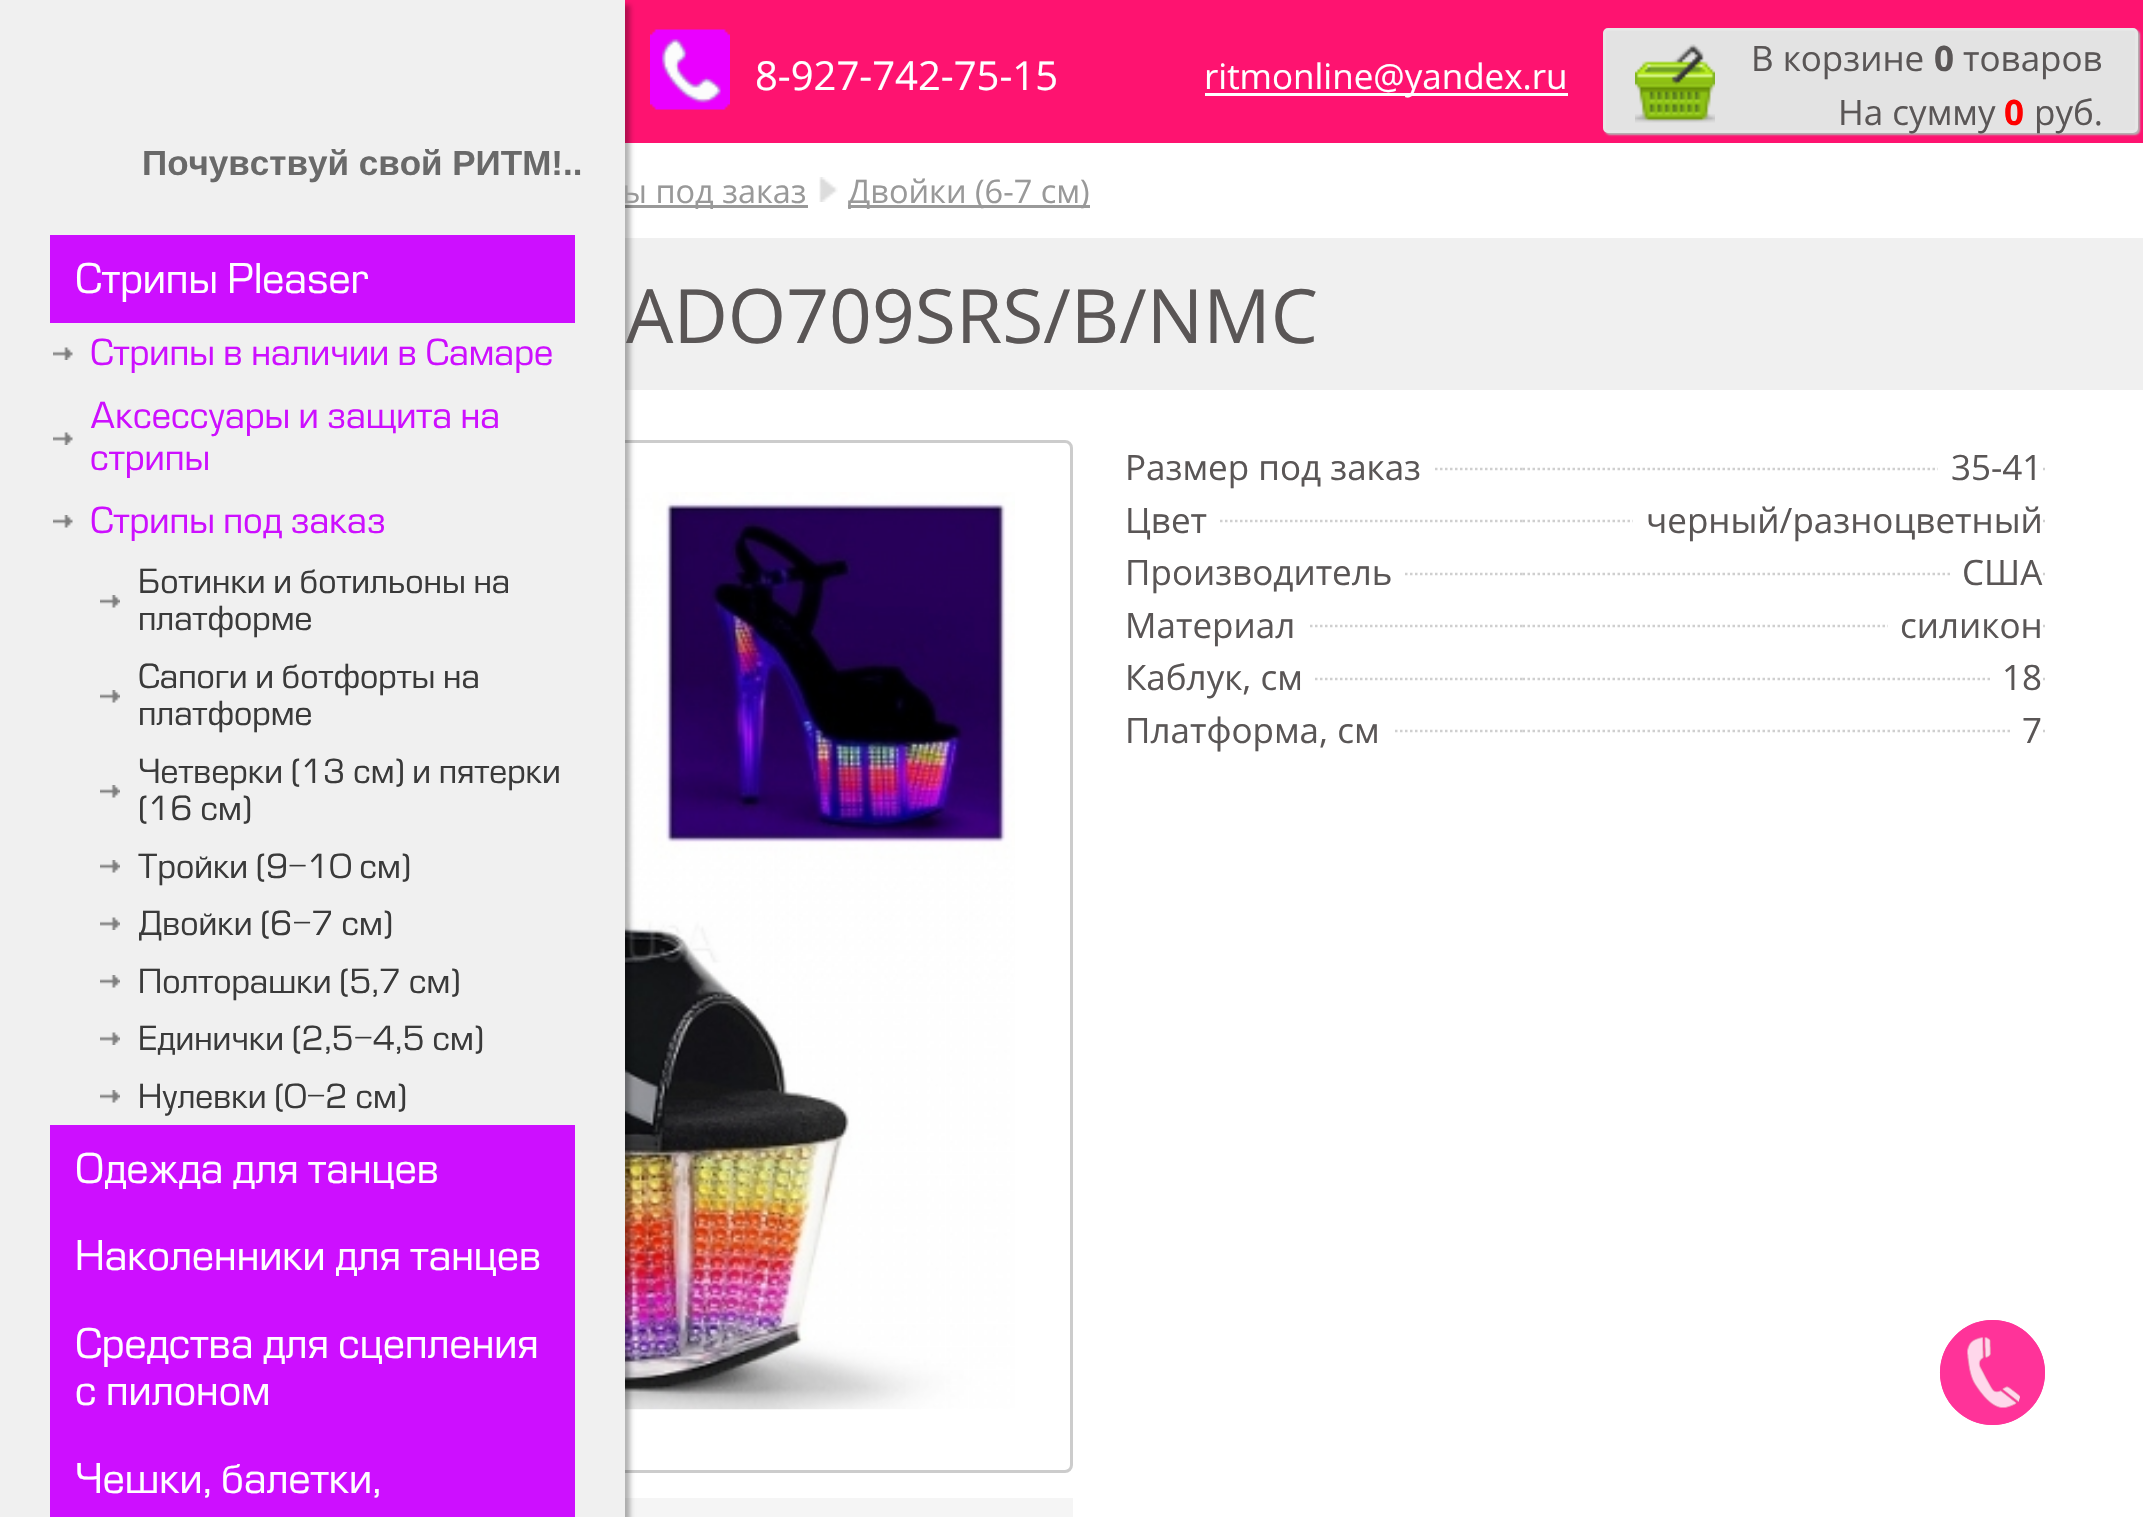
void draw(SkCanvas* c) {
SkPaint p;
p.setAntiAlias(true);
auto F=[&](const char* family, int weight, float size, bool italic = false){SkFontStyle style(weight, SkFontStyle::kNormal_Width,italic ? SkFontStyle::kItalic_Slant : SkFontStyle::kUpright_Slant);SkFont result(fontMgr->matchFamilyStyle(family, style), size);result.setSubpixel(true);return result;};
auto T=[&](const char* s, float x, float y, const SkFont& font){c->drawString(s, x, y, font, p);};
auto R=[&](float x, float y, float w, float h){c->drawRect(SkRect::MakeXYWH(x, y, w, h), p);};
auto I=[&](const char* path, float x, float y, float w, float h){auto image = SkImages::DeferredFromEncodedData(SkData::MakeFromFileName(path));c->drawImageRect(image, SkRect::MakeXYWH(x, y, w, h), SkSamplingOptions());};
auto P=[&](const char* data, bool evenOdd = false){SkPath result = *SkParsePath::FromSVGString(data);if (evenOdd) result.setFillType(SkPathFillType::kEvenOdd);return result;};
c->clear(0xffffffff);
p.setColor(0xfffe1370);
R(625,0,1518,143);
p.setColor(0xff999999);
R(625,205,183,3);
p.setColor(0xfff0f0f0);
R(625,238,1518,152);
p.setStroke(true);
p.setStrokeWidth(3);
p.setColor(0xffcccccc);
c->drawRoundRect(SkRect::MakeXYWH(51.5,441.5,1020,1030),6.5,6.5,p);
I("10.png",625,492,390,918);
p.setStroke(false);
p.setColor(0xfff5f5f5);
R(625,1498,448,19);
p.setColor(0x4d000000);
p.setMaskFilter(SkMaskFilter::MakeBlur(kNormal_SkBlurStyle, 2.5));
c->drawRect(SkRect::MakeXYWH(5,5,625,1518),p);
p.setMaskFilter(nullptr);
auto f1 = F("Open Sans",400,32.5);
p.setColor(0xff999999);
T("ы под заказ",622,203,f1);
p.setColor(0xfff0f0f0);
R(0,0,625,1517);
auto f2 = F("Liberation Sans",700,35);
p.setColor(0xff696969);
T("Почувствуй свой РИТМ!..",142,175,f2);
p.setColor(0xffcd0fff);
R(50,235,525,88);
auto f3 = F("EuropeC",400,40);
p.setColor(0xffffffff);
T("Стрипы Pleaser",75,293,f3);
I("1.png",53,347,20,13);
auto f4 = F("EuropeC",400,35);
p.setColor(0xffcd0fff);
T("Стрипы в наличии в Самаре",90,365,f4);
I("1.png",53,432,20,13);
T("Аксессуары и защита на",90,428,f4);
T("стрипы",90,470,f4);
I("2.png",53,515,20,13);
T("Стрипы под заказ",90,533,f4);
I("3.png",100,595,20,13);
auto f5 = F("EuropeC",400,32.5);
p.setColor(0xff3a3a3a);
T("Ботинки и ботильоны на",138,593,f5);
T("платформе",138,630,f5);
I("3.png",100,690,20,13);
T("Сапоги и ботфорты на",138,688,f5);
T("платформе",138,725,f5);
I("4.png",100,785,20,13);
T("Четверки (13 см) и пятерки",138,783,f5);
T("(16 см)",138,820,f5);
I("3.png",100,860,20,13);
T("Тройки (9-10 см)",138,878,f5);
I("5.png",100,917,20,13);
T("Двойки (6-7 см)",138,935,f5);
I("3.png",100,975,20,13);
T("Полторашки (5,7 см)",138,993,f5);
I("5.png",100,1032,20,13);
T("Единички (2,5-4,5 см)",138,1050,f5);
I("3.png",100,1090,20,13);
T("Нулевки (0-2 см)",138,1108,f5);
p.setColor(0xffcd0fff);
R(50,1125,525,392);
p.setColor(0xffffffff);
T("Одежда для танцев",75,1183,f3);
T("Наколенники для танцев",75,1270,f3);
T("Средства для сцепления",75,1358,f3);
T("с пилоном",75,1405,f3);
T("Чешки, балетки,",75,1493,f3);
I("6.png",650,29,80,81);
auto f6 = F("Open Sans",400,40);
T("8-927-742-75-15",755,90,f6);
R(1205,93,363,3);
auto f7 = F("Open Sans",400,35);
T("ritmonline@yandex.ru",1204,89,f7);
p.setColor(0xffb5b5b5);
p.setMaskFilter(SkMaskFilter::MakeBlur(kNormal_SkBlurStyle, 1));
c->drawRoundRect(SkRect::MakeXYWH(1605,30,535,105),5,5,p);
p.setMaskFilter(nullptr);
p.setColor(0xffe3e3e3);
c->drawRoundRect(SkRect::MakeXYWH(1604.5,29.5,532,102),3.5,3.5,p);
p.setStroke(true);
p.setColor(0xffe7e7e7);
c->drawRoundRect(SkRect::MakeXYWH(1604.5,29.5,532,102),3.5,3.5,p);
I("7.png",1635,44,80,79);
p.setStroke(false);
p.setColor(0xff5a5656);
T("В корзине",1751,71,f7);
auto f8 = F("Open Sans",700,35);
T("0",1934,71,f8);
T("товаров",1963,71,f7);
T("На сумму",1838,125,f7);
p.setColor(0xffff0000);
T("0",2004,125,f8);
p.setColor(0xff5a5656);
T("руб.",2034,125,f7);
p.setStroke(true);
p.setColor(0xffff3399);
c->drawCircle(1992.5,1372.5,51,p);
p.setStroke(false);
c->drawCircle(1992.5,1372.5,52.5,p);
I("8.png",1967,1337,53,71);
I("9.png",819,177,19,25);
p.setColor(0xff999999);
R(848,205,242,3);
T("Двойки (6-7 см)",848,203,f1);
auto f9 = F("Open Sans",400,75);
p.setColor(0xff5a5656);
T("ADO709SRS/B/NMC",626,343,f9);
p.setStroke(true);
p.setStrokeWidth(2.5);
p.setColor(0xffcfcfcf);
p.setPathEffect(SkDashPathEffect::Make({{2.5f,2.5f}}, 0));
c->drawPath(P("M1125 469h397.5"),p);
p.setPathEffect(nullptr);
p.setStroke(false);
p.setColor(0xffffffff);
R(1125,467,308,4);
p.setColor(0xff5a5656);
T("Размер под заказ",1125,480,f7);
p.setStroke(true);
p.setColor(0xffcfcfcf);
p.setPathEffect(SkDashPathEffect::Make({{2.5f,2.5f}}, 0));
c->drawPath(P("M1522.5 469h525"),p);
p.setPathEffect(nullptr);
p.setStroke(false);
p.setColor(0xffffffff);
R(1938,467,105,4);
p.setColor(0xff5a5656);
T("35-41",1951,480,f7);
p.setStroke(true);
p.setColor(0xffcfcfcf);
p.setPathEffect(SkDashPathEffect::Make({{2.5f,2.5f}}, 0));
c->drawPath(P("M1125 521h397.5"),p);
p.setPathEffect(nullptr);
p.setStroke(false);
p.setColor(0xffffffff);
R(1125,519,93,4);
p.setColor(0xff5a5656);
T("Цвет",1125,533,f7);
p.setStroke(true);
p.setColor(0xffcfcfcf);
p.setPathEffect(SkDashPathEffect::Make({{2.5f,2.5f}}, 0));
c->drawPath(P("M1522.5 521h525"),p);
p.setPathEffect(nullptr);
p.setStroke(false);
p.setColor(0xffffffff);
R(1633,519,410,4);
p.setColor(0xff5a5656);
T("черный/разноцветный",1646,533,f7);
p.setStroke(true);
p.setColor(0xffcfcfcf);
p.setPathEffect(SkDashPathEffect::Make({{2.5f,2.5f}}, 0));
c->drawPath(P("M1125 574h397.5"),p);
p.setPathEffect(nullptr);
p.setStroke(false);
p.setColor(0xffffffff);
R(1125,572,278,4);
p.setColor(0xff5a5656);
T("Производитель",1125,585,f7);
p.setStroke(true);
p.setColor(0xffcfcfcf);
p.setPathEffect(SkDashPathEffect::Make({{2.5f,2.5f}}, 0));
c->drawPath(P("M1522.5 574h525"),p);
p.setPathEffect(nullptr);
p.setStroke(false);
p.setColor(0xffffffff);
R(1952,572,91,4);
p.setColor(0xff5a5656);
T("США",1962,585,f7);
p.setStroke(true);
p.setColor(0xffcfcfcf);
p.setPathEffect(SkDashPathEffect::Make({{2.5f,2.5f}}, 0));
c->drawPath(P("M1125 626h397.5"),p);
p.setPathEffect(nullptr);
p.setStroke(false);
p.setColor(0xffffffff);
R(1125,624,183,4);
p.setColor(0xff5a5656);
T("Материал",1125,638,f7);
p.setStroke(true);
p.setColor(0xffcfcfcf);
p.setPathEffect(SkDashPathEffect::Make({{2.5f,2.5f}}, 0));
c->drawPath(P("M1522.5 626h525"),p);
p.setPathEffect(nullptr);
p.setStroke(false);
p.setColor(0xffffffff);
R(1888,624,155,4);
p.setColor(0xff5a5656);
T("силикон",1900,638,f7);
p.setStroke(true);
p.setColor(0xffcfcfcf);
p.setPathEffect(SkDashPathEffect::Make({{2.5f,2.5f}}, 0));
c->drawPath(P("M1125 679h397.5"),p);
p.setPathEffect(nullptr);
p.setStroke(false);
p.setColor(0xffffffff);
R(1125,677,188,4);
p.setColor(0xff5a5656);
T("Каблук, см",1125,690,f7);
p.setStroke(true);
p.setColor(0xffcfcfcf);
p.setPathEffect(SkDashPathEffect::Make({{2.5f,2.5f}}, 0));
c->drawPath(P("M1522.5 679h525"),p);
p.setPathEffect(nullptr);
p.setStroke(false);
p.setColor(0xffffffff);
R(1992,677,51,4);
p.setColor(0xff5a5656);
T("18",2002,690,f7);
p.setStroke(true);
p.setColor(0xffcfcfcf);
p.setPathEffect(SkDashPathEffect::Make({{2.5f,2.5f}}, 0));
c->drawPath(P("M1125 731h397.5"),p);
p.setPathEffect(nullptr);
p.setStroke(false);
p.setColor(0xffffffff);
R(1125,729,268,4);
p.setColor(0xff5a5656);
T("Платформа, см",1125,743,f7);
p.setStroke(true);
p.setColor(0xffcfcfcf);
p.setPathEffect(SkDashPathEffect::Make({{2.5f,2.5f}}, 0));
c->drawPath(P("M1522.5 731h525"),p);
p.setPathEffect(nullptr);
p.setStroke(false);
p.setColor(0xffffffff);
R(2012,729,31,4);
p.setColor(0xff5a5656);
T("7",2022,743,f7);
}
